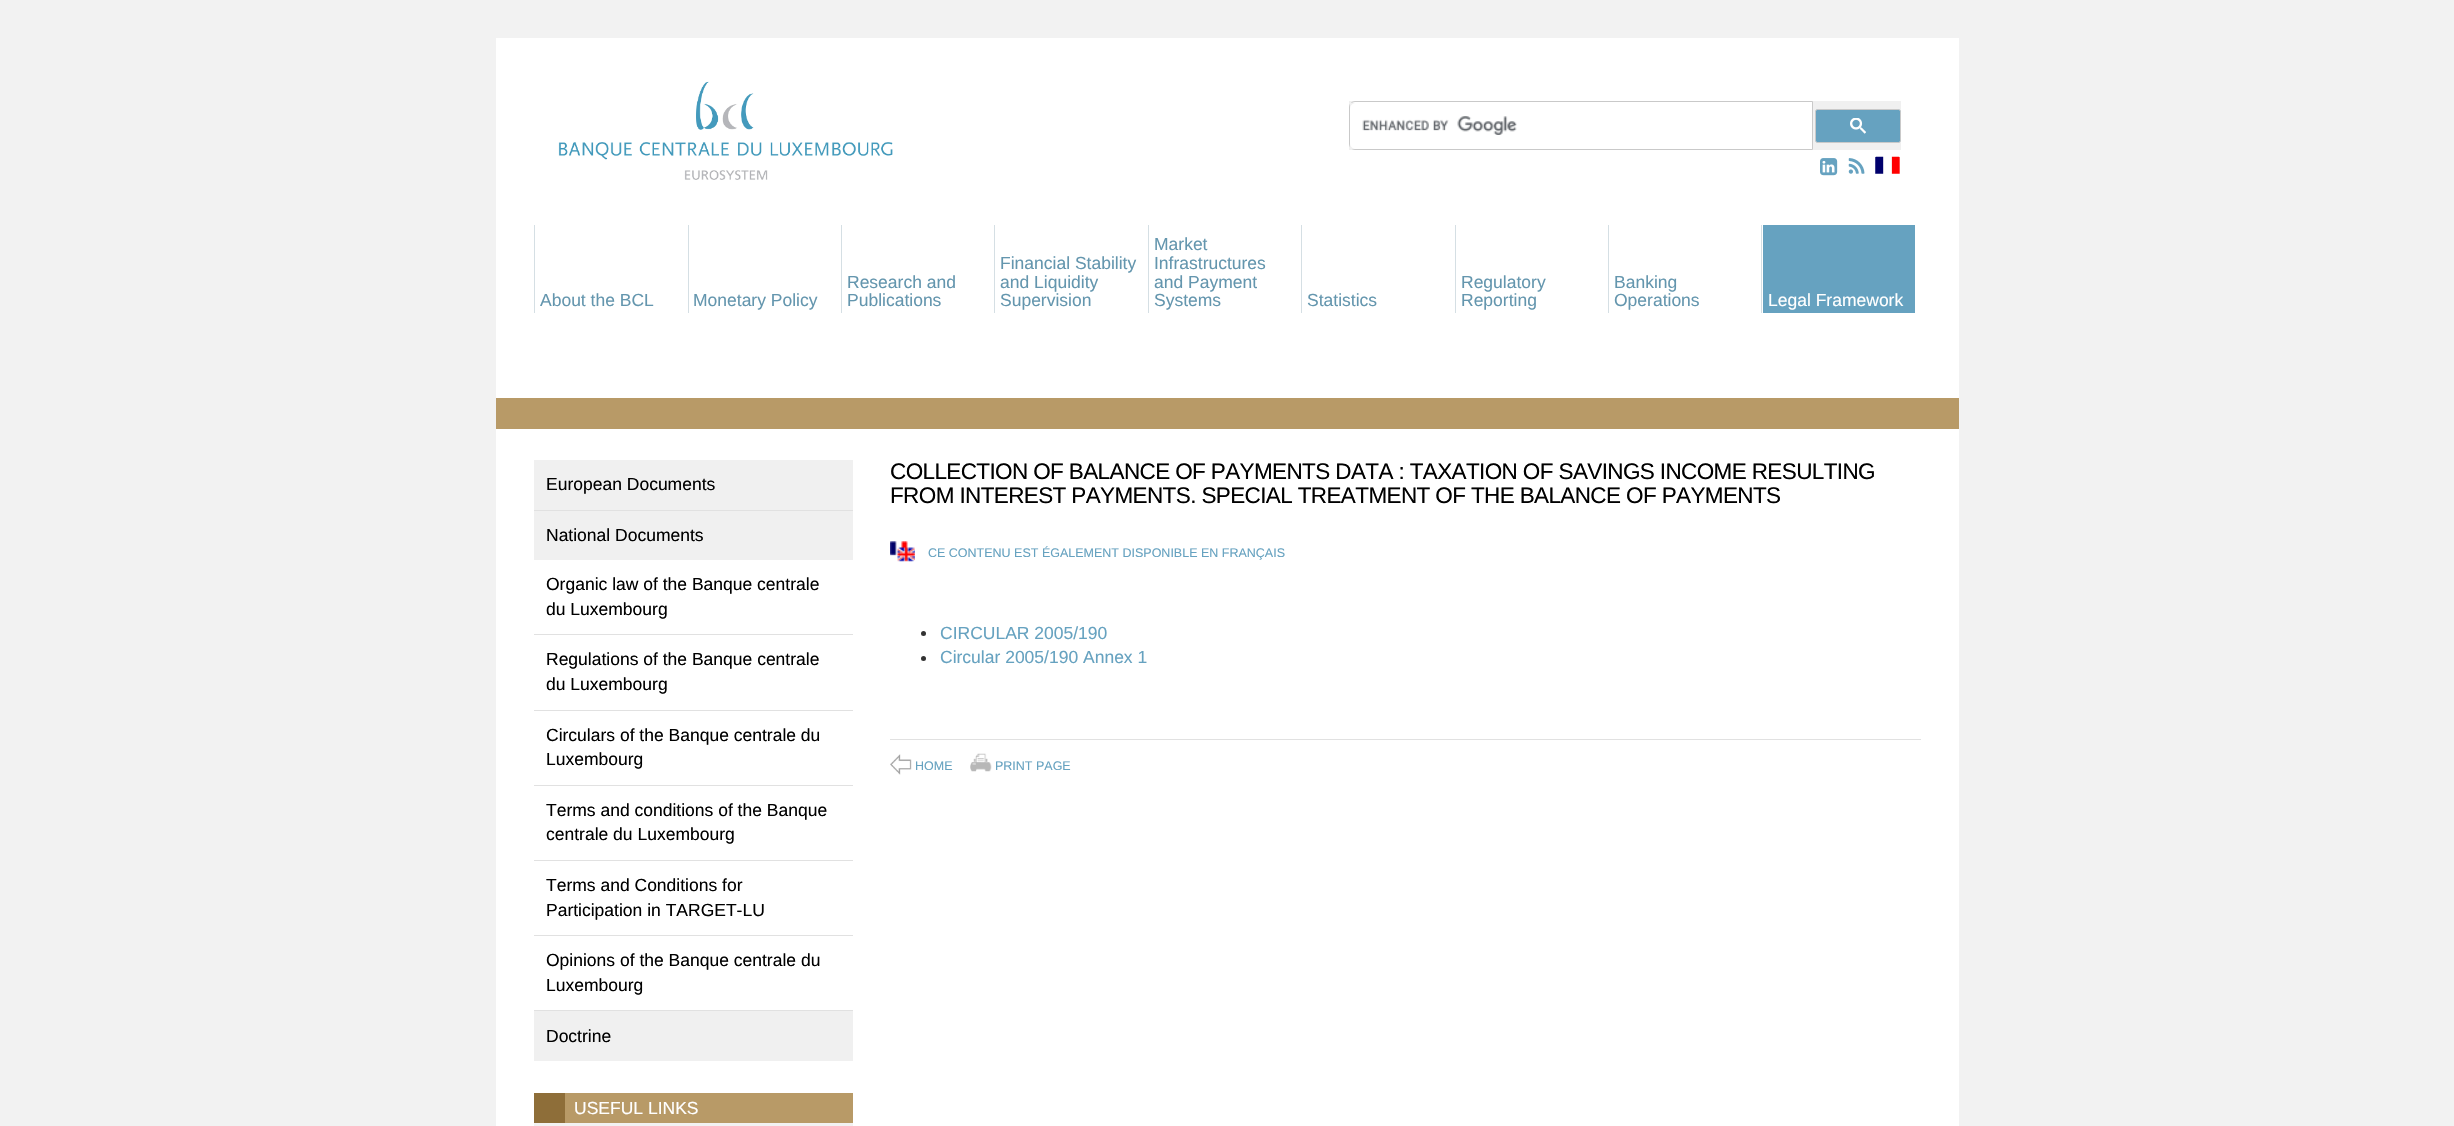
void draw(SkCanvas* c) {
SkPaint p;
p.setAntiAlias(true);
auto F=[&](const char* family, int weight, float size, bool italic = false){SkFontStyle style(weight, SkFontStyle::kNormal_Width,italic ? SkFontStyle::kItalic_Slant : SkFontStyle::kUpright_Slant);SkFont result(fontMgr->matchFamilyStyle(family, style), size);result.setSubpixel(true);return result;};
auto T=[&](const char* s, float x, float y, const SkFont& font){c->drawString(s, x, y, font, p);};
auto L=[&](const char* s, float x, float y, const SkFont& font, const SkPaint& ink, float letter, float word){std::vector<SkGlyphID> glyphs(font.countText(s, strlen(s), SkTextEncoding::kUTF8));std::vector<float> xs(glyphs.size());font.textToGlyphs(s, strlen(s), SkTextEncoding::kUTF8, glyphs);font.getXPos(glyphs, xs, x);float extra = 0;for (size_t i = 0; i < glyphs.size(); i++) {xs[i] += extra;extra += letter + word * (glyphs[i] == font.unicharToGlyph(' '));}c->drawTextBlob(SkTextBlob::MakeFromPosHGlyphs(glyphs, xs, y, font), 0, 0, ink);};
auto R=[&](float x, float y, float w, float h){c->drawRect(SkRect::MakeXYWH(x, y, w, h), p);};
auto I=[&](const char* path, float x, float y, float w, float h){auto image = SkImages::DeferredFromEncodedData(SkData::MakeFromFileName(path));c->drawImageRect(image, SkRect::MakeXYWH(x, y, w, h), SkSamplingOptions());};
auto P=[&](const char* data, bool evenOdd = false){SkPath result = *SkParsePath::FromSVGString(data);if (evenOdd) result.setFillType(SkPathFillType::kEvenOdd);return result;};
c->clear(0xfff2f2f2);
p.setColor(0xffffffff);
R(496,38,1463,1088);
I("1.png",558,81,335,99);
p.setColor(0xfff0f0f0);
R(1349,101,552,49);
p.setColor(0xffffffff);
c->drawPath(P("M1355 101.5h457.5v48h-457.5c-3 0-5.5-2.5-5.5-5.5v-37c0-3 2.5-5.5 5.5-5.5z"),p);
p.setStroke(true);
p.setStrokeWidth(1);
p.setColor(0xffc9c9c9);
c->drawPath(P("M1355 101.5h457.5v48h-457.5c-3 0-5.5-2.5-5.5-5.5v-37c0-3 2.5-5.5 5.5-5.5z"),p);
p.setStroke(false);
p.setColor(0xfff0f0f0);
R(1350,103,6,46);
p.setColor(0xffffffff);
c->drawPath(P("M1356 103h455v46h-455c-3.5 0-6-2.5-6-6v-34c0-3.5 2.5-6 6-6z"),p);
I("2.png",1362,116,155,19);
p.setColor(0xff66a2c0);
c->drawRoundRect(SkRect::MakeXYWH(1815.5,109.5,85,33),2,2,p);
p.setStroke(true);
p.setColor(0xffc9c9c9);
c->drawRoundRect(SkRect::MakeXYWH(1815.5,109.5,85,33),2,2,p);
I("3.png",1850,118,16,16);
I("4.png",1820,158,18,18);
I("5.png",1848,158,17,16);
I("6.png",1875,156,25,18);
p.setStroke(false);
p.setColor(0xffd5dfe4);
R(534,225,1,88);
auto f1 = F("Liberation Sans",400,17.5);
p.setColor(0xff6496ae);
T("About the BCL",540,306,f1);
p.setColor(0xffd5dfe4);
R(688,225,1,88);
p.setColor(0xff6496ae);
T("Monetary Policy",693,306,f1);
p.setColor(0xffd5dfe4);
R(841,225,1,88);
p.setColor(0xff6496ae);
T("Research and",847,288,f1);
T("Publications",847,306,f1);
p.setColor(0xffd5dfe4);
R(994,225,1,88);
p.setColor(0xff6496ae);
T("Financial Stability",1000,269,f1);
T("and Liquidity",1000,288,f1);
T("Supervision",1000,306,f1);
p.setColor(0xffd5dfe4);
R(1148,225,1,88);
p.setColor(0xff6496ae);
T("Market",1154,250,f1);
T("Infrastructures",1154,269,f1);
T("and Payment",1154,288,f1);
T("Systems",1154,306,f1);
p.setColor(0xffd5dfe4);
R(1301,225,1,88);
p.setColor(0xff6496ae);
T("Statistics",1307,306,f1);
p.setColor(0xffd5dfe4);
R(1455,225,1,88);
p.setColor(0xff6496ae);
T("Regulatory",1461,288,f1);
T("Reporting",1461,306,f1);
p.setColor(0xffd5dfe4);
R(1608,225,1,88);
p.setColor(0xff6496ae);
T("Banking",1614,288,f1);
T("Operations",1614,306,f1);
p.setColor(0xffd5dfe4);
R(1761,225,1,88);
p.setColor(0xff66a2c0);
R(1763,225,152,88);
p.setColor(0xffffffff);
T("Legal Framework",1768,306,f1);
p.setColor(0xffb89a67);
R(496,398,1463,31);
p.setColor(0xfff0f0f0);
R(534,460,319,50);
p.setColor(0xffe1e1e1);
R(534,510,319,1);
p.setColor(0xff000000);
T("European Documents",546,490,f1);
p.setColor(0xfff0f0f0);
R(534,511,319,49);
p.setColor(0xffe1e1e1);
R(534,1010,319,1);
p.setColor(0xff000000);
T("National Documents",546,541,f1);
p.setColor(0xffe1e1e1);
R(534,634,319,1);
p.setColor(0xff000000);
T("Organic law of the Banque centrale",546,590,f1);
T("du Luxembourg",546,615,f1);
p.setColor(0xffe1e1e1);
R(534,710,319,1);
p.setColor(0xff000000);
T("Regulations of the Banque centrale",546,665,f1);
T("du Luxembourg",546,690,f1);
p.setColor(0xffe1e1e1);
R(534,785,319,1);
p.setColor(0xff000000);
T("Circulars of the Banque centrale du",546,741,f1);
T("Luxembourg",546,765,f1);
p.setColor(0xffe1e1e1);
R(534,860,319,1);
p.setColor(0xff000000);
T("Terms and conditions of the Banque",546,816,f1);
T("centrale du Luxembourg",546,840,f1);
p.setColor(0xffe1e1e1);
R(534,935,319,1);
p.setColor(0xff000000);
T("Terms and Conditions for",546,891,f1);
T("Participation in TARGET-LU",546,916,f1);
T("Opinions of the Banque centrale du",546,966,f1);
T("Luxembourg",546,991,f1);
p.setColor(0xfff0f0f0);
R(534,1011,319,50);
p.setColor(0xff000000);
T("Doctrine",546,1042,f1);
p.setColor(0xffb89a67);
R(565,1093,288,30);
p.setColor(0xff8e6e39);
R(534,1093,31,30);
p.setColor(0xffffffff);
T("USEFUL LINKS",574,1114,f1);
p.setColor(0xfff2f2f2);
R(534,1123,319,3);
auto f2 = F("Liberation Sans",400,22.5);
p.setColor(0xff000000);
L("COLLECTION OF BALANCE OF PAYMENTS DATA : TAXATION OF SAVINGS INCOME RESULTING",890,479,f2,p,-.62,0);
L("FROM INTEREST PAYMENTS. SPECIAL TREATMENT OF THE BALANCE OF PAYMENTS",890,503,f2,p,-.62,0);
I("7.png",890,541,25,21);
auto f3 = F("Liberation Sans",400,12.5);
p.setColor(0xff66a2c0);
T("CE CONTENU EST ÉGALEMENT DISPONIBLE EN FRANÇAIS",928,557,f3);
p.setColor(0xff333333);
c->drawCircle(923.5,633.5,2.5,p);
p.setColor(0xff66a2c0);
T("CIRCULAR 2005/190",940,639,f1);
p.setColor(0xff333333);
c->drawCircle(923.5,658.5,2.5,p);
p.setColor(0xff66a2c0);
T("Circular 2005/190 Annex 1",940,663,f1);
p.setColor(0xffe1e1e1);
R(890,739,1031,1);
I("8.png",890,754,22,21);
p.setColor(0xff66a2c0);
T("HOME",915,770,f3);
I("9.png",970,753,22,19);
T("PRINT PAGE",995,770,f3);
}
